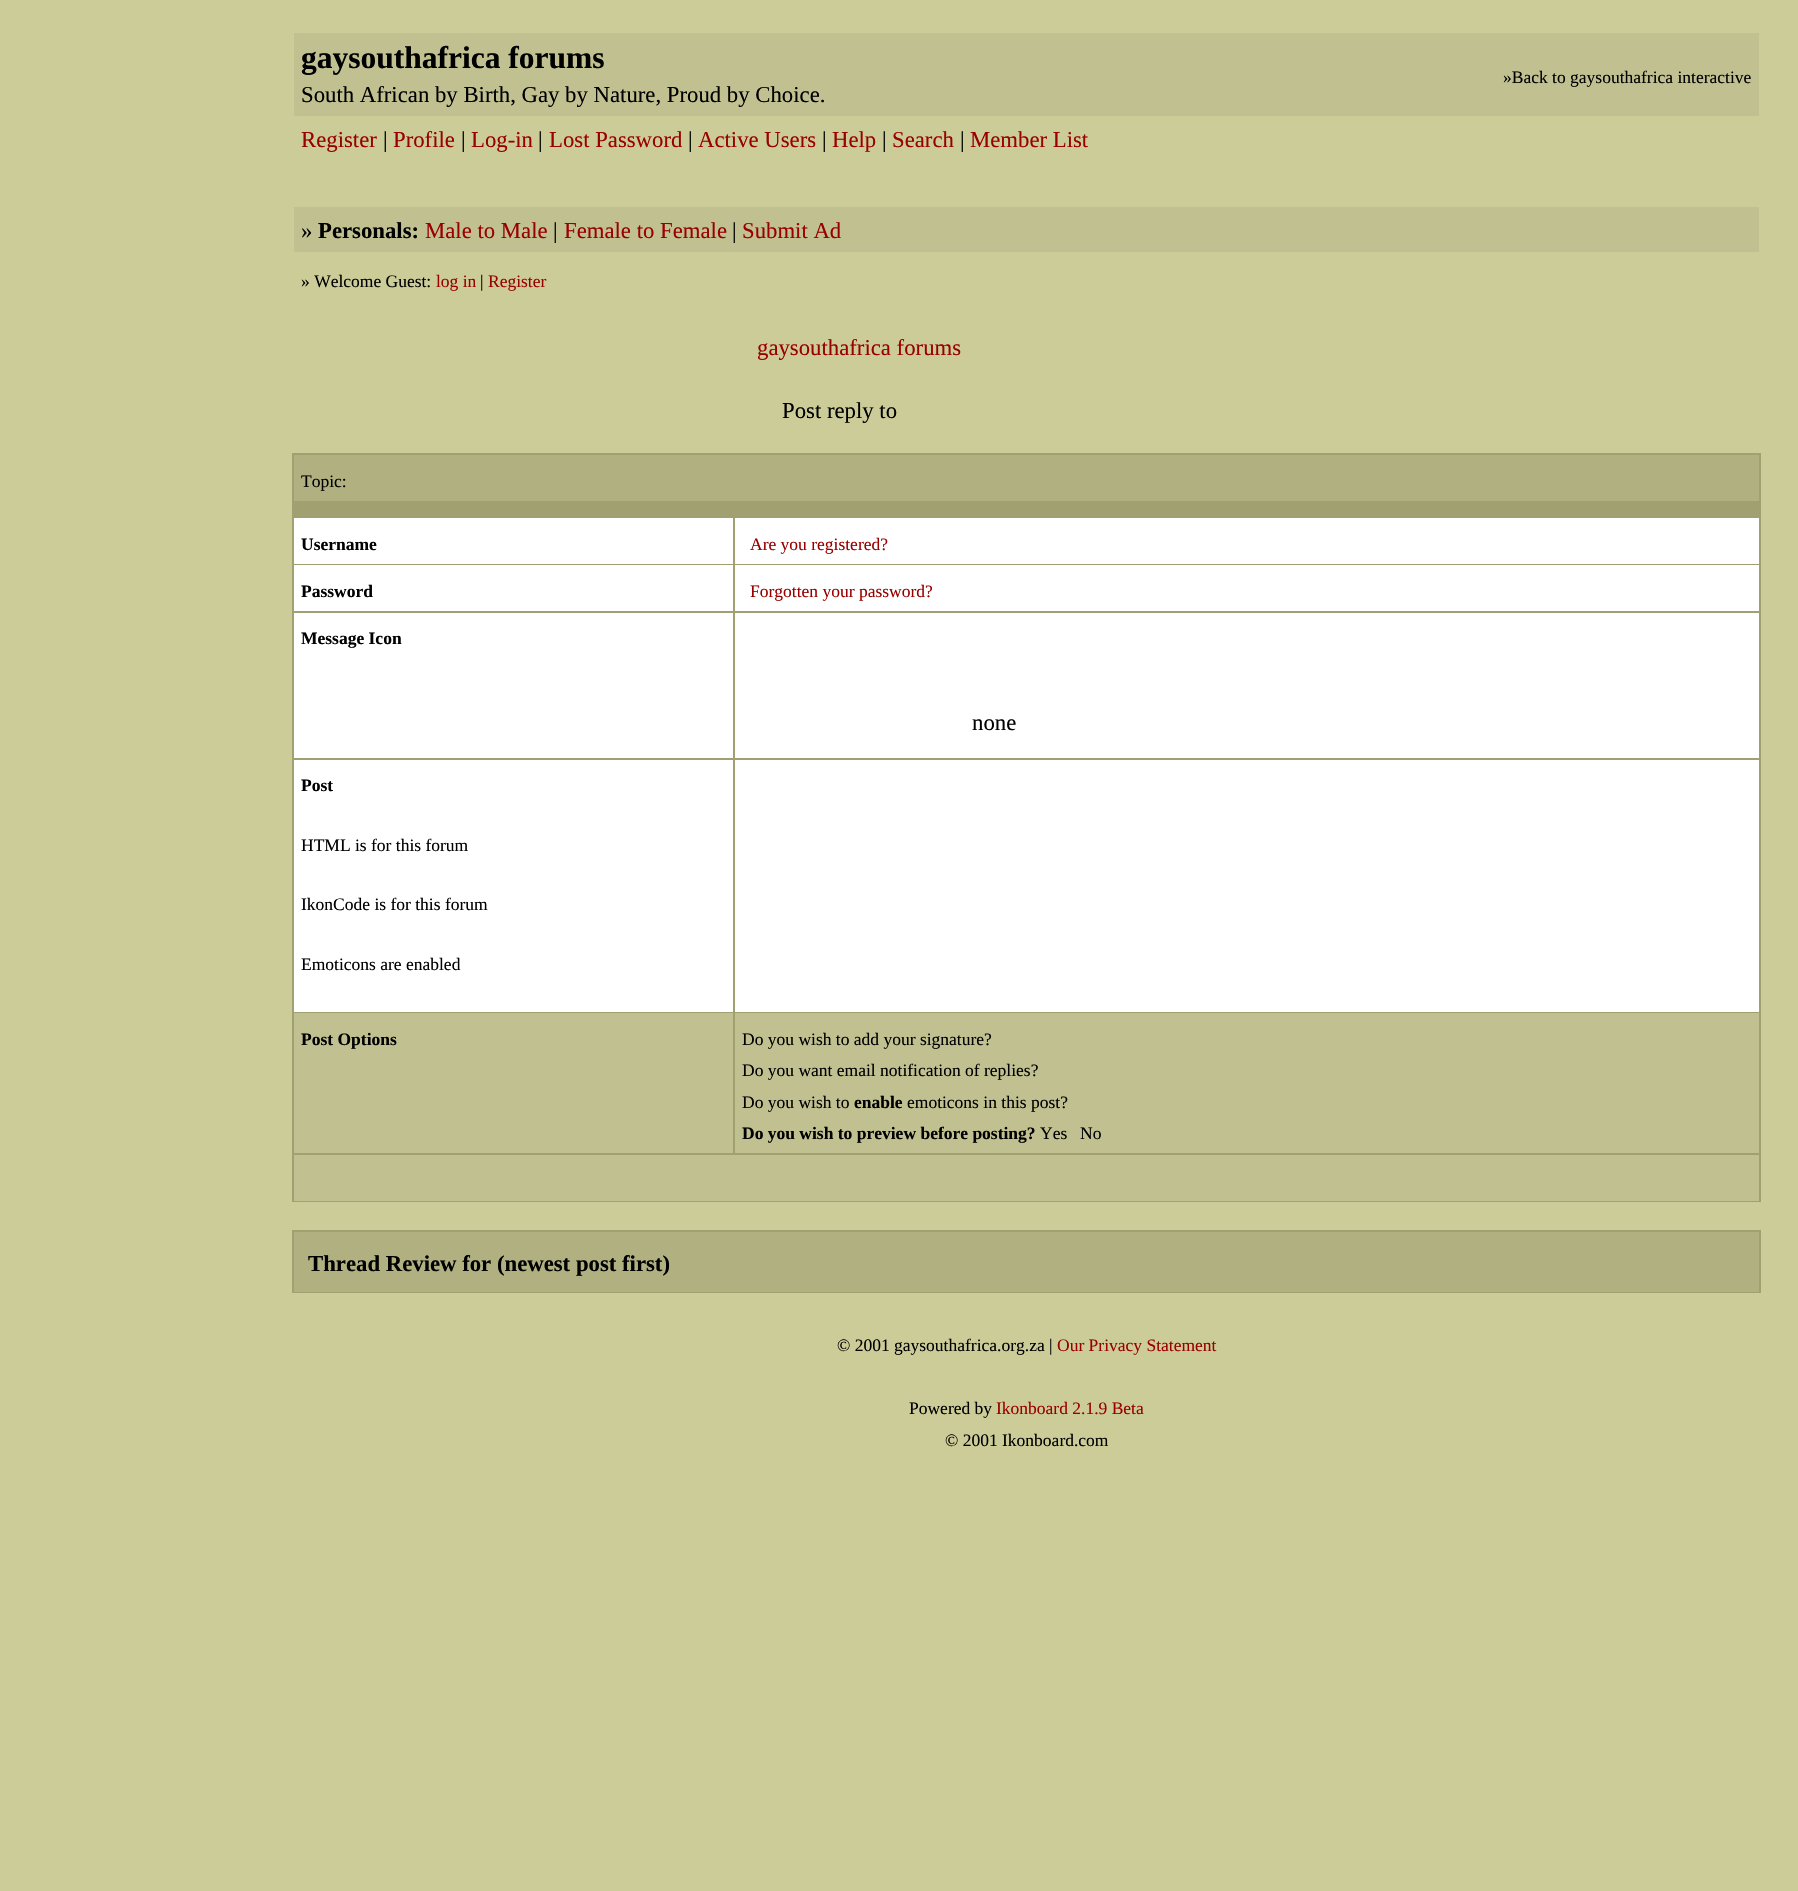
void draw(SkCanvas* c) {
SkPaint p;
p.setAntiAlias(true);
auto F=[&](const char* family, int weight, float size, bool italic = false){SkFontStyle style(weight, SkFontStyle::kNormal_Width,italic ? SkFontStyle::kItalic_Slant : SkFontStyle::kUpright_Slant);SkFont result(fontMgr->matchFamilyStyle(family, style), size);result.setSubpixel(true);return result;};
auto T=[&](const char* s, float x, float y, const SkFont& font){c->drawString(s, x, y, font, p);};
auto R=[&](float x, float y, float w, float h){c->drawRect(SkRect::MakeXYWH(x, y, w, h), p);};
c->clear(0xffcccc99);
p.setColor(0xffc0c090);
R(294,33,1465,83);
auto f1 = F("Liberation Serif",700,31.5);
p.setColor(0xff000000);
T("gaysouthafrica forums",301,68,f1);
auto f2 = F("Liberation Serif",400,22.75);
T("South African by Birth, Gay by Nature, Proud by Choice.",301,102,f2);
auto f3 = F("Liberation Serif",400,17.5);
T("»Back to gaysouthafrica interactive",1503,83,f3);
p.setColor(0xff990000);
T("Register",301,147,f2);
p.setColor(0xff000000);
T("|",383,147,f2);
p.setColor(0xff990000);
T("Profile",393,147,f2);
p.setColor(0xff000000);
T("|",461,147,f2);
p.setColor(0xff990000);
T("Log-in",471,147,f2);
p.setColor(0xff000000);
T("|",538,147,f2);
p.setColor(0xff990000);
T("Lost Password",549,147,f2);
p.setColor(0xff000000);
T("|",688,147,f2);
p.setColor(0xff990000);
T("Active Users",698,147,f2);
p.setColor(0xff000000);
T("|",822,147,f2);
p.setColor(0xff990000);
T("Help",832,147,f2);
p.setColor(0xff000000);
T("|",882,147,f2);
p.setColor(0xff990000);
T("Search",892,147,f2);
p.setColor(0xff000000);
T("|",960,147,f2);
p.setColor(0xff990000);
T("Member List",970,147,f2);
p.setColor(0xffc0c090);
R(294,207,1465,45);
p.setColor(0xff000000);
T("»",301,238,f2);
auto f4 = F("Liberation Serif",700,22.75);
T("Personals:",318,238,f4);
p.setColor(0xff990000);
T("Male to Male",425,238,f2);
p.setColor(0xff000000);
T("|",553,238,f2);
p.setColor(0xff990000);
T("Female to Female",564,238,f2);
p.setColor(0xff000000);
T("|",732,238,f2);
p.setColor(0xff990000);
T("Submit Ad",742,238,f2);
p.setColor(0xff000000);
T("» Welcome Guest:",301,287,f3);
p.setColor(0xff990000);
T("log in",436,287,f3);
p.setColor(0xff000000);
T("|",480,287,f3);
p.setColor(0xff990000);
T("Register",488,287,f3);
T("gaysouthafrica forums",757,355,f2);
p.setColor(0xff000000);
T("Post reply to",782,418,f2);
p.setColor(0xffa0a070);
R(292,453,1469,749);
p.setColor(0xffb0b080);
R(294,455,1465,46);
p.setColor(0xff000000);
T("Topic:",301,487,f3);
p.setColor(0xffffffff);
R(294,518,439,46);
auto f5 = F("Liberation Serif",700,17.5);
p.setColor(0xff000000);
T("Username",301,550,f5);
p.setColor(0xffffffff);
R(735,518,1024,46);
p.setColor(0xff990000);
T("Are you registered?",750,550,f3);
p.setColor(0xffffffff);
R(294,565,439,46);
p.setColor(0xff000000);
T("Password",301,597,f5);
p.setColor(0xffffffff);
R(735,565,1024,46);
p.setColor(0xff990000);
T("Forgotten your password?",750,597,f3);
p.setColor(0xffffffff);
R(294,613,439,145);
p.setColor(0xff000000);
T("Message Icon",301,644,f5);
p.setColor(0xffffffff);
R(735,613,1024,145);
p.setColor(0xff000000);
T("none",972,730,f2);
p.setColor(0xffffffff);
R(294,760,439,252);
p.setColor(0xff000000);
T("Post",301,791,f5);
T("HTML is for this forum",301,851,f3);
T("IkonCode is for this forum",301,910,f3);
T("Emoticons are enabled",301,970,f3);
p.setColor(0xffffffff);
R(735,760,1024,252);
p.setColor(0xffc0c090);
R(294,1013,439,140);
p.setColor(0xff000000);
T("Post Options",301,1045,f5);
p.setColor(0xffc0c090);
R(735,1013,1024,140);
p.setColor(0xff000000);
T("Do you wish to add your signature?",742,1045,f3);
T("Do you want email notification of replies?",742,1076,f3);
T("Do you wish to",742,1108,f3);
T("enable",854,1108,f5);
T("emoticons in this post?",907,1108,f3);
T("Do you wish to preview before posting?",742,1139,f5);
T("Yes",1040,1139,f3);
T("No",1080,1139,f3);
p.setColor(0xffc0c090);
R(294,1155,1465,46);
p.setColor(0xffa0a070);
R(292,1230,1469,63);
p.setColor(0xffb0b080);
R(294,1232,1465,60);
p.setColor(0xff000000);
T("Thread Review for (newest post first)",308,1271,f4);
T("© 2001 gaysouthafrica.org.za |",837,1351,f3);
p.setColor(0xff990000);
T("Our Privacy Statement",1057,1351,f3);
p.setColor(0xff000000);
T("Powered by",909,1414,f3);
p.setColor(0xff990000);
T("Ikonboard 2.1.9 Beta",996,1414,f3);
p.setColor(0xff000000);
T("© 2001 Ikonboard.com",945,1446,f3);
}
